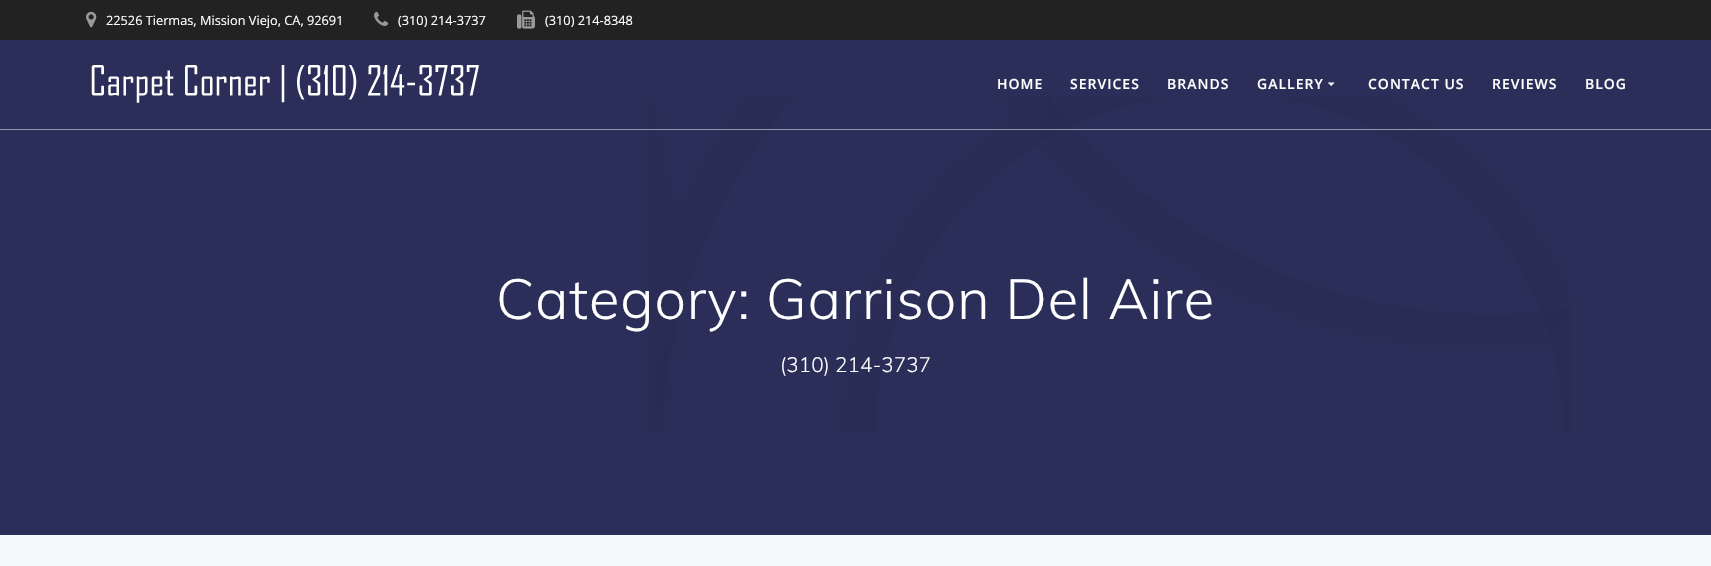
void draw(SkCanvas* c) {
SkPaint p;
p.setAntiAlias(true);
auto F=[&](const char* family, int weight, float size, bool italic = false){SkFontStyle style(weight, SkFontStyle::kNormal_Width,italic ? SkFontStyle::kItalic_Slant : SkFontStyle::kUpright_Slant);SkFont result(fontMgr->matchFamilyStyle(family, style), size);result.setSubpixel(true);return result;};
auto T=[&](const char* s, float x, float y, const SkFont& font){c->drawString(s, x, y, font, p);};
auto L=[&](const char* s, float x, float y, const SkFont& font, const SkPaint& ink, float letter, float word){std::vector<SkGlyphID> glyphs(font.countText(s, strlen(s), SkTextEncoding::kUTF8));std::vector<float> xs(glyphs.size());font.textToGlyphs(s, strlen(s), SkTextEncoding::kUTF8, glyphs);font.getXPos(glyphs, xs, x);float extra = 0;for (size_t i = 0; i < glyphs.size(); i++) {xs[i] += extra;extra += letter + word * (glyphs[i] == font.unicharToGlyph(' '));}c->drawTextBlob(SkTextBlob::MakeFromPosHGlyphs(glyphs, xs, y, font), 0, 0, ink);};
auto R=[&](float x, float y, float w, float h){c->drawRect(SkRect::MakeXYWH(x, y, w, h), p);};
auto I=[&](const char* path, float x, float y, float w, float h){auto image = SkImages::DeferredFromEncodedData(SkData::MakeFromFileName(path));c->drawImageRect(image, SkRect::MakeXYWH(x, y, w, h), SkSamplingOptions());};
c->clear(0xff2a2e58);
p.setColor(0xff222222);
R(0,0,1711,40);
I("1.png",86,11,11,17);
auto f1 = F("Open Sans",400,12.75);
p.setColor(0xffffffff);
T("22526 Tiermas, Mission Viejo, CA, 92691",106,25,f1);
I("2.png",374,11,15,15);
T("(310) 214-3737",398,25,f1);
I("3.png",517,10,18,19);
T("(310) 214-8348",545,25,f1);
I("6.png",648,97,923,334);
p.setColor(0x80ffffff);
R(0,129,1711,1);
I("4.png",91,65,388,38);
auto f2 = F("Open Sans",600,14);
p.setColor(0xffffffff);
L("HOME",997,89,f2,p,1,0);
L("SERVICES",1070,89,f2,p,1,0);
L("BRANDS",1167,89,f2,p,1,0);
L("GALLERY",1257,89,f2,p,1,0);
I("5.png",1328,82,7,4);
L("CONTACT US",1368,89,f2,p,1,0);
L("REVIEWS",1492,89,f2,p,1,0);
L("BLOG",1585,89,f2,p,1,0);
auto f3 = F("Muli",300,56);
L("Category: Garrison Del Aire",496,319,f3,p,.9,0);
auto f4 = F("Muli",300,20.75);
T("(310) 214-3737",780,372,f4);
p.setColor(0xfff5fafd);
R(0,535,1711,31);
}
